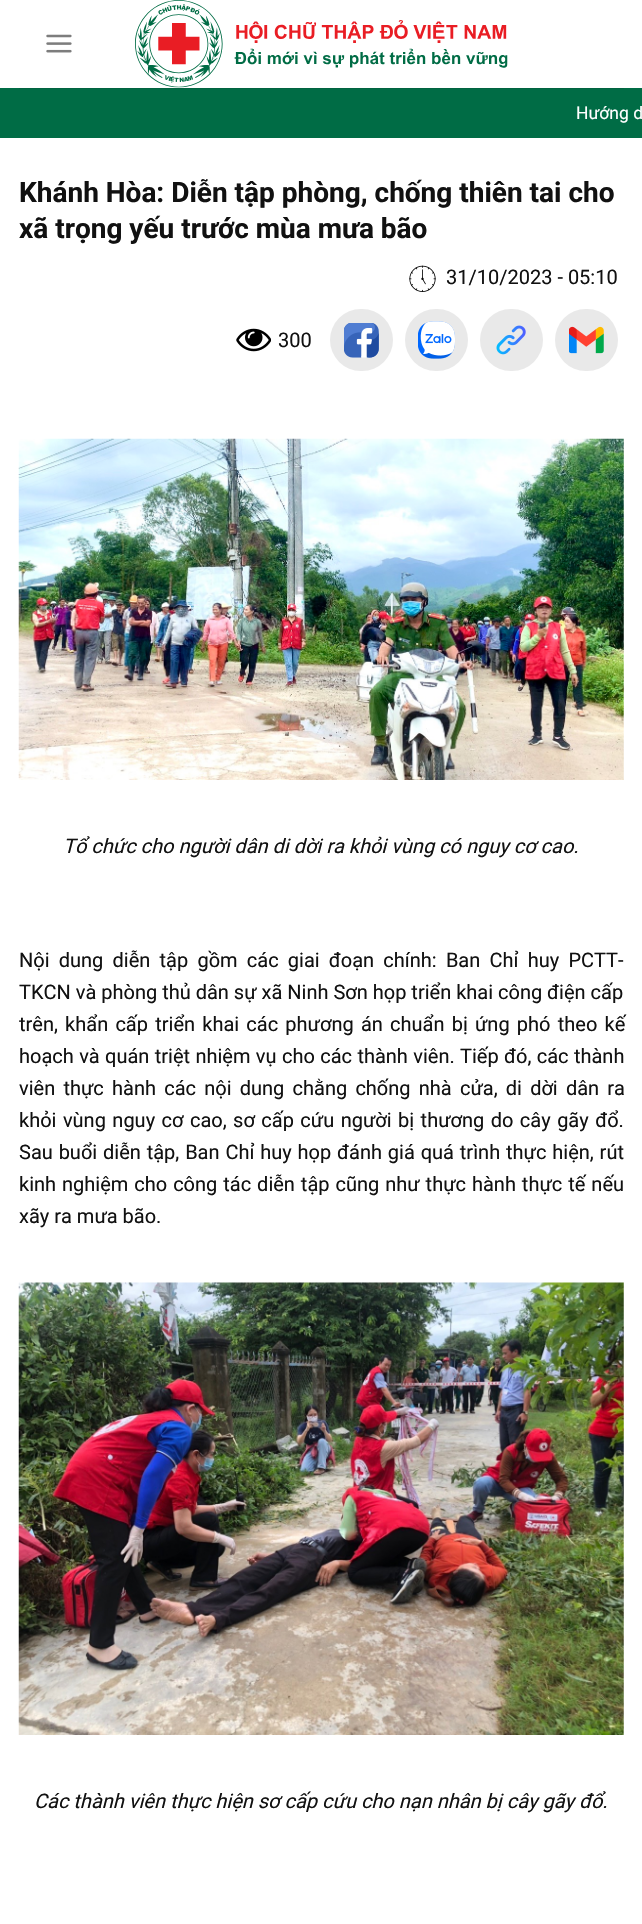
void draw(SkCanvas* c) {
SkPaint p;
p.setAntiAlias(true);
auto F=[&](const char* family, int weight, float size, bool italic = false){SkFontStyle style(weight, SkFontStyle::kNormal_Width,italic ? SkFontStyle::kItalic_Slant : SkFontStyle::kUpright_Slant);SkFont result(fontMgr->matchFamilyStyle(family, style), size);result.setSubpixel(true);return result;};
auto T=[&](const char* s, float x, float y, const SkFont& font){c->drawString(s, x, y, font, p);};
auto L=[&](const char* s, float x, float y, const SkFont& font, const SkPaint& ink, float letter, float word){std::vector<SkGlyphID> glyphs(font.countText(s, strlen(s), SkTextEncoding::kUTF8));std::vector<float> xs(glyphs.size());font.textToGlyphs(s, strlen(s), SkTextEncoding::kUTF8, glyphs);font.getXPos(glyphs, xs, x);float extra = 0;for (size_t i = 0; i < glyphs.size(); i++) {xs[i] += extra;extra += letter + word * (glyphs[i] == font.unicharToGlyph(' '));}c->drawTextBlob(SkTextBlob::MakeFromPosHGlyphs(glyphs, xs, y, font), 0, 0, ink);};
auto R=[&](float x, float y, float w, float h){c->drawRect(SkRect::MakeXYWH(x, y, w, h), p);};
auto Q=[&](float x, float y, float w, float h, float radius){c->drawRoundRect(SkRect::MakeXYWH(x, y, w, h), radius, radius, p);};
auto I=[&](const char* path, float x, float y, float w, float h){auto image = SkImages::DeferredFromEncodedData(SkData::MakeFromFileName(path));c->drawImageRect(image, SkRect::MakeXYWH(x, y, w, h), SkSamplingOptions());};
c->clear(0xffffffff);
I("1.png",46,34,26,19);
I("2.png",135,0,373,88);
p.setColor(0xff006c45);
R(0,88,642,50);
p.setColor(0xff026340);
R(19,88,605,1);
auto f1 = F("Roboto",400,17.5);
p.setColor(0xffffffff);
T("Hướng d",576,119,f1);
auto f2 = F("Roboto",700,28);
p.setColor(0xff111111);
T("Khánh Hòa: Diễn tập phòng, chống thiên tai cho",19,202,f2);
T("xã trọng yếu trước mùa mưa bão",19,238,f2);
I("3.png",409,265,27,27);
auto f3 = F("Roboto",400,20);
T("31/10/2023 - 05:10",446,284,f3);
I("4.png",236,328,35,24);
T("300",278,347,f3);
p.setColor(0xffe9e9e9);
Q(330,309,63,62,31);
I("5.png",344,323,35,35);
Q(405,309,63,62,31);
I("6.png",418,321,37,38);
Q(480,309,63,62,31);
I("7.png",496,325,30,30);
Q(555,309,63,62,31);
I("8.png",569,326,35,28);
I("9.png",18,438,606,342);
auto f4 = F("Roboto",400,20,true);
p.setColor(0xff111111);
T("Tổ chức cho người dân di dời ra khỏi vùng có nguy cơ cao.",63,853,f4);
L("Nội dung diễn tập gồm các giai đoạn chính: Ban Chỉ huy PCTT-",19,967,f3,p,0,4.25);
T("TKCN và phòng thủ dân sự xã Ninh Sơn họp triển khai công điện cấp",19,999,f3);
L("trên, khẩn cấp triển khai các phương án chuẩn bị ứng phó theo kế",19,1031,f3,p,0,2.25);
L("hoạch và quán triệt nhiệm vụ cho các thành viên. Tiếp đó, các thành",19,1063,f3,p,0,.4);
L("viên thực hành các nội dung chằng chống nhà cửa, di dời dân ra",19,1095,f3,p,0,3.25);
L("khỏi vùng nguy cơ cao, sơ cấp cứu người bị thương do cây gãy đổ.",19,1127,f3,p,0,1.5);
L("Sau buổi diễn tập, Ban Chỉ huy họp đánh giá quá trình thực hiện, rút",19,1159,f3,p,0,.9);
L("kinh nghiệm cho công tác diễn tập cũng như thực hành thực tế nếu",19,1191,f3,p,0,1);
T("xãy ra mưa bão.",19,1223,f3);
I("10.png",18,1282,606,453);
T("Các thành viên thực hiện sơ cấp cứu cho nạn nhân bị cây gãy đổ.",34,1808,f4);
}
